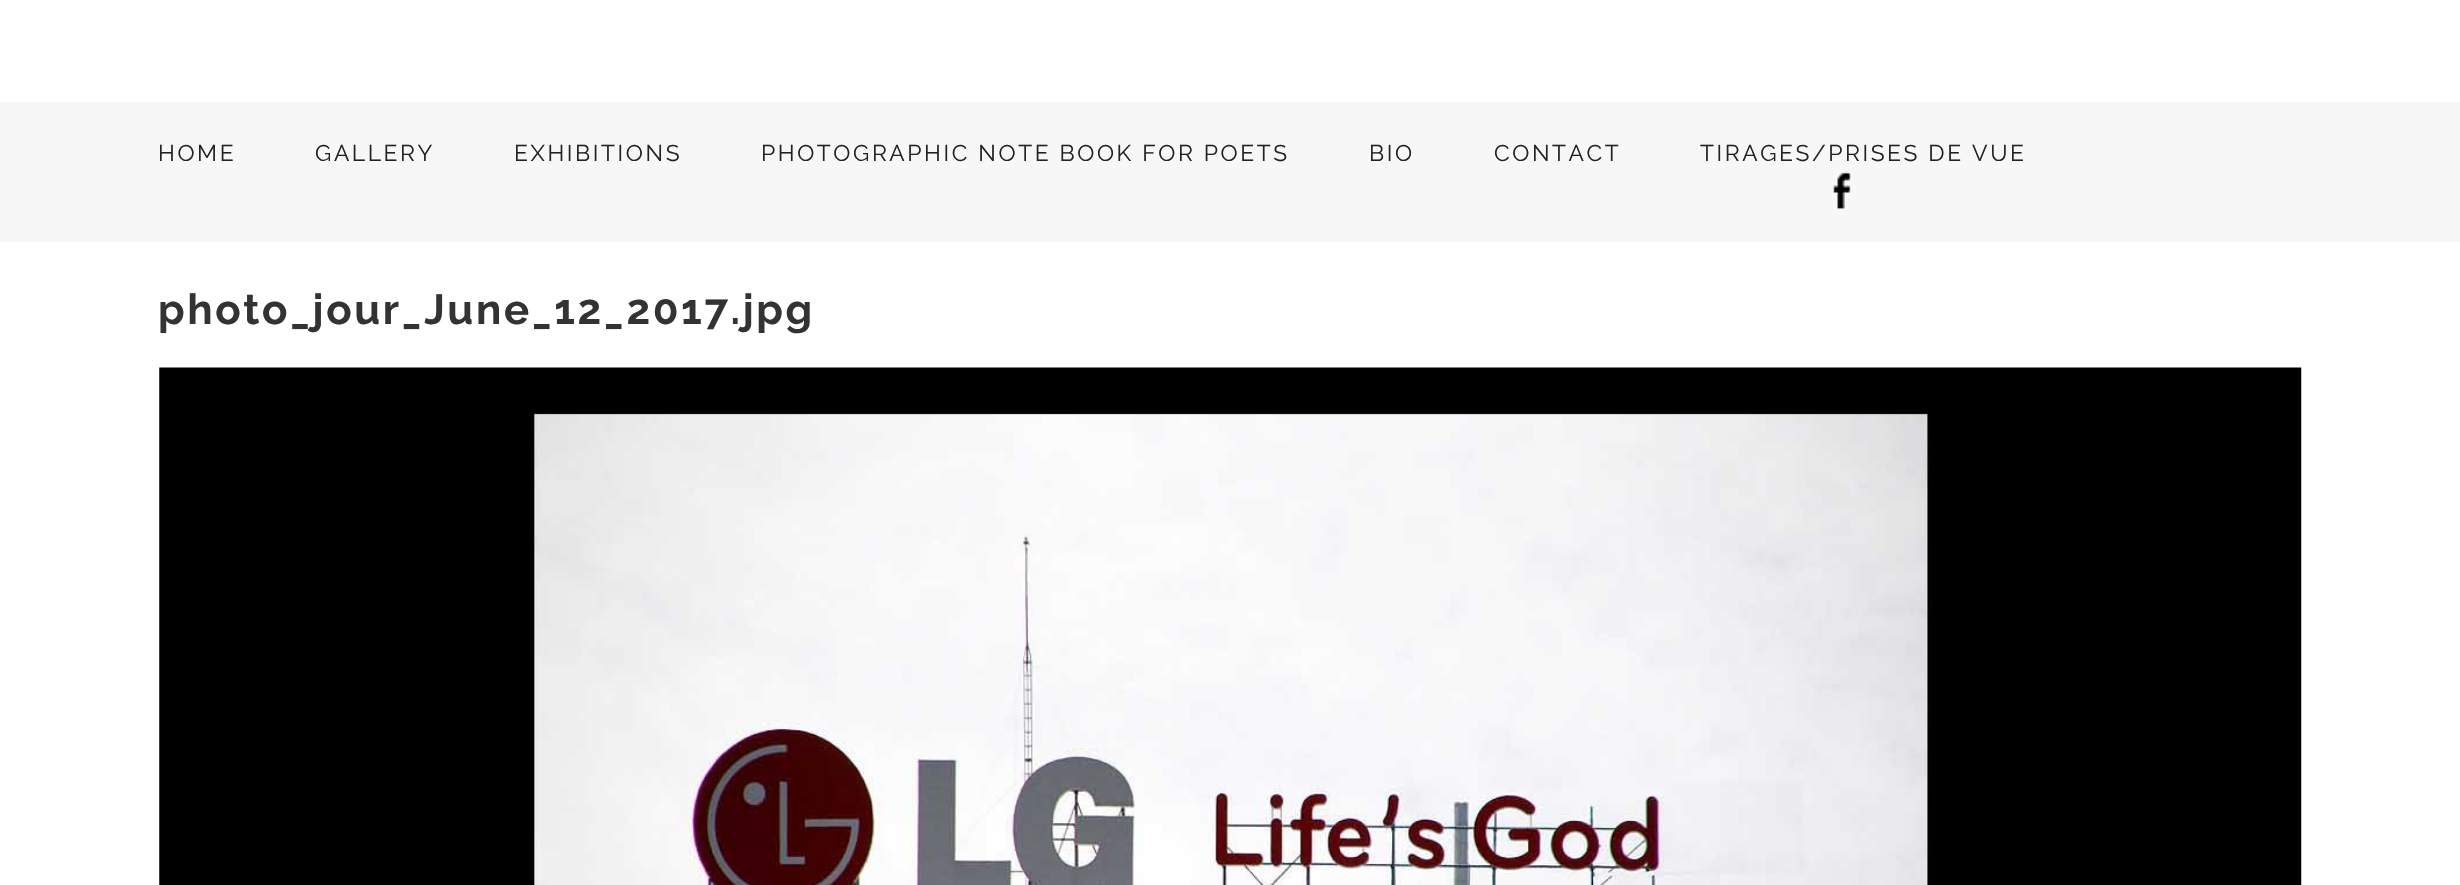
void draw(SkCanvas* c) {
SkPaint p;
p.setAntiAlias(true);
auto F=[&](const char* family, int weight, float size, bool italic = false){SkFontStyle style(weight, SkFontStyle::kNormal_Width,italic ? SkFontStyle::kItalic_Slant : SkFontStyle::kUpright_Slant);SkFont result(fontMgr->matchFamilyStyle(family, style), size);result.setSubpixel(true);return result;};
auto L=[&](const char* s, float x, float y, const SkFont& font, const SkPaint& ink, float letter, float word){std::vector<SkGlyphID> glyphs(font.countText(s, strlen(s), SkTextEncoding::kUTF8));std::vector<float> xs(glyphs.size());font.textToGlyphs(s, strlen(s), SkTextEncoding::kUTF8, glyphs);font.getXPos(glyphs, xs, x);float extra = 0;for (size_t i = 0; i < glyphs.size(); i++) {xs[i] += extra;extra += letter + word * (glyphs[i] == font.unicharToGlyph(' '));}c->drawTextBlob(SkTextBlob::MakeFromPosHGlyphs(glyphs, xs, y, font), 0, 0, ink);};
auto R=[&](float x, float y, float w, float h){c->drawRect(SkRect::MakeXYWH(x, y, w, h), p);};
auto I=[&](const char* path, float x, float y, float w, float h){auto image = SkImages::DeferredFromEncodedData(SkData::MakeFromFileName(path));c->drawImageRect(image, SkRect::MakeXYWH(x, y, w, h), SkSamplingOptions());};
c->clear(0xffffffff);
p.setColor(0xfff7f7f7);
R(0,102,2460,140);
auto f1 = F("Raleway",400,22.75);
p.setColor(0xff222222);
L("HOME",158,161,f1,p,2.6,0);
L("GALLERY",315,161,f1,p,2.6,0);
L("EXHIBITIONS",514,161,f1,p,2.6,0);
L("PHOTOGRAPHIC NOTE BOOK FOR POETS",761,161,f1,p,2.6,0);
L("BIO",1369,161,f1,p,2.6,0);
L("CONTACT",1494,161,f1,p,2.6,0);
L("TIRAGES/PRISES DE VUE",1700,161,f1,p,2.6,0);
I("1.png",1833,172,18,37);
auto f2 = F("Raleway",700,42);
p.setColor(0xff333333);
L("photo_jour_June_12_2017.jpg",158,324,f2,p,2.6,0);
I("2.png",159,367,2143,518);
}
